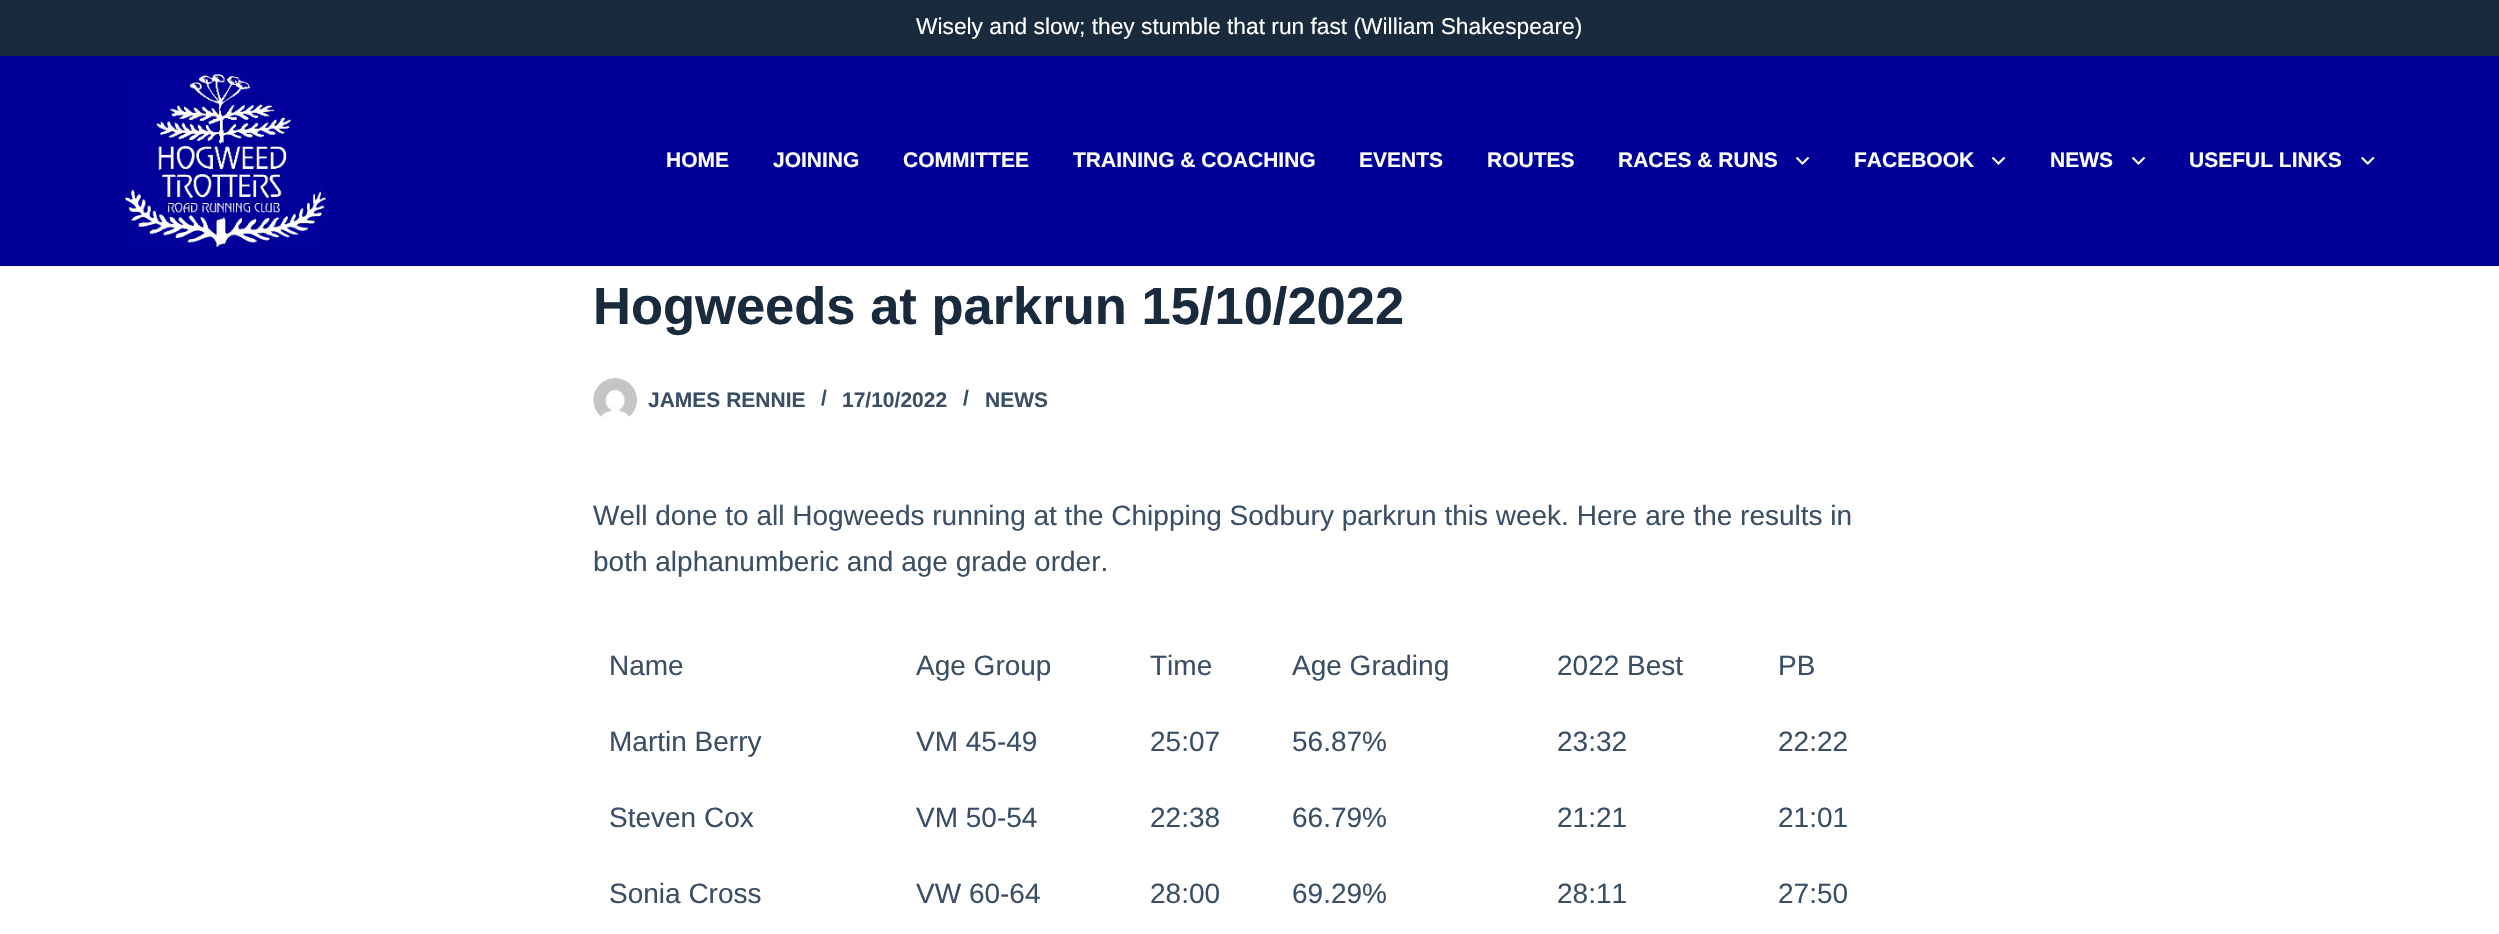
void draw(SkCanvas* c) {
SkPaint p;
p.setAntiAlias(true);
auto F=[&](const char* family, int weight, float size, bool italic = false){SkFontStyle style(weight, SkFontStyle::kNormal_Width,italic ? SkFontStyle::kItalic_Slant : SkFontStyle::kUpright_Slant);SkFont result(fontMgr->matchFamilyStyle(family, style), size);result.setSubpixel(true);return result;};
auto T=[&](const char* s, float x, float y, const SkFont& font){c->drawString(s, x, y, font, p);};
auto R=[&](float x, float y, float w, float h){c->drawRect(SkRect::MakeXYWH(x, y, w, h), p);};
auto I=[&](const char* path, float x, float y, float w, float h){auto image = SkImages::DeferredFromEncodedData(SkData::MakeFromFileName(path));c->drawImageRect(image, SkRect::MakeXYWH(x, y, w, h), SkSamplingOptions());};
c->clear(0xffffffff);
p.setColor(0xff000099);
R(0,56,2499,210);
p.setColor(0xff192a3d);
R(0,0,2499,56);
auto f1 = F("Liberation Sans",400,22.75);
p.setColor(0xffffffff);
T("Wisely and slow; they stumble that run fast (William Shakespeare)",916,34,f1);
I("1.png",125,74,201,173);
auto f2 = F("Liberation Sans",700,21);
T("HOME",666,167,f2);
T("JOINING",773,167,f2);
T("COMMITTEE",903,167,f2);
T("TRAINING & COACHING",1073,167,f2);
T("EVENTS",1359,167,f2);
T("ROUTES",1487,167,f2);
T("RACES & RUNS",1618,167,f2);
I("2.png",1796,157,14,8);
T("FACEBOOK",1854,167,f2);
I("2.png",1992,157,14,8);
T("NEWS",2050,167,f2);
I("2.png",2132,157,14,8);
T("USEFUL LINKS",2189,167,f2);
I("3.png",2361,157,14,8);
auto f3 = F("Liberation Sans",700,52.5);
p.setColor(0xff192a3d);
T("Hogweeds at parkrun 15/10/2022",593,324,f3);
I("4.png",593,378,44,41);
p.setColor(0xff3a4f66);
T("JAMES RENNIE",648,407,f2);
T("/",821,405,f2);
T("17/10/2022",842,407,f2);
T("/",963,405,f2);
T("NEWS",985,407,f2);
auto f4 = F("Liberation Sans",400,28);
T("Well done to all Hogweeds running at the Chipping Sodbury parkrun this week. Here are the results in",593,525,f4);
T("both alphanumberic and age grade order.",593,571,f4);
T("Name",609,675,f4);
T("Age Group",916,675,f4);
T("Time",1150,675,f4);
T("Age Grading",1292,675,f4);
T("2022 Best",1557,675,f4);
T("PB",1778,675,f4);
T("Martin Berry",609,751,f4);
T("VM 45-49",916,751,f4);
T("25:07",1150,751,f4);
T("56.87%",1292,751,f4);
T("23:32",1557,751,f4);
T("22:22",1778,751,f4);
T("Steven Cox",609,827,f4);
T("VM 50-54",916,827,f4);
T("22:38",1150,827,f4);
T("66.79%",1292,827,f4);
T("21:21",1557,827,f4);
T("21:01",1778,827,f4);
T("Sonia Cross",609,903,f4);
T("VW 60-64",916,903,f4);
T("28:00",1150,903,f4);
T("69.29%",1292,903,f4);
T("28:11",1557,903,f4);
T("27:50",1778,903,f4);
}
